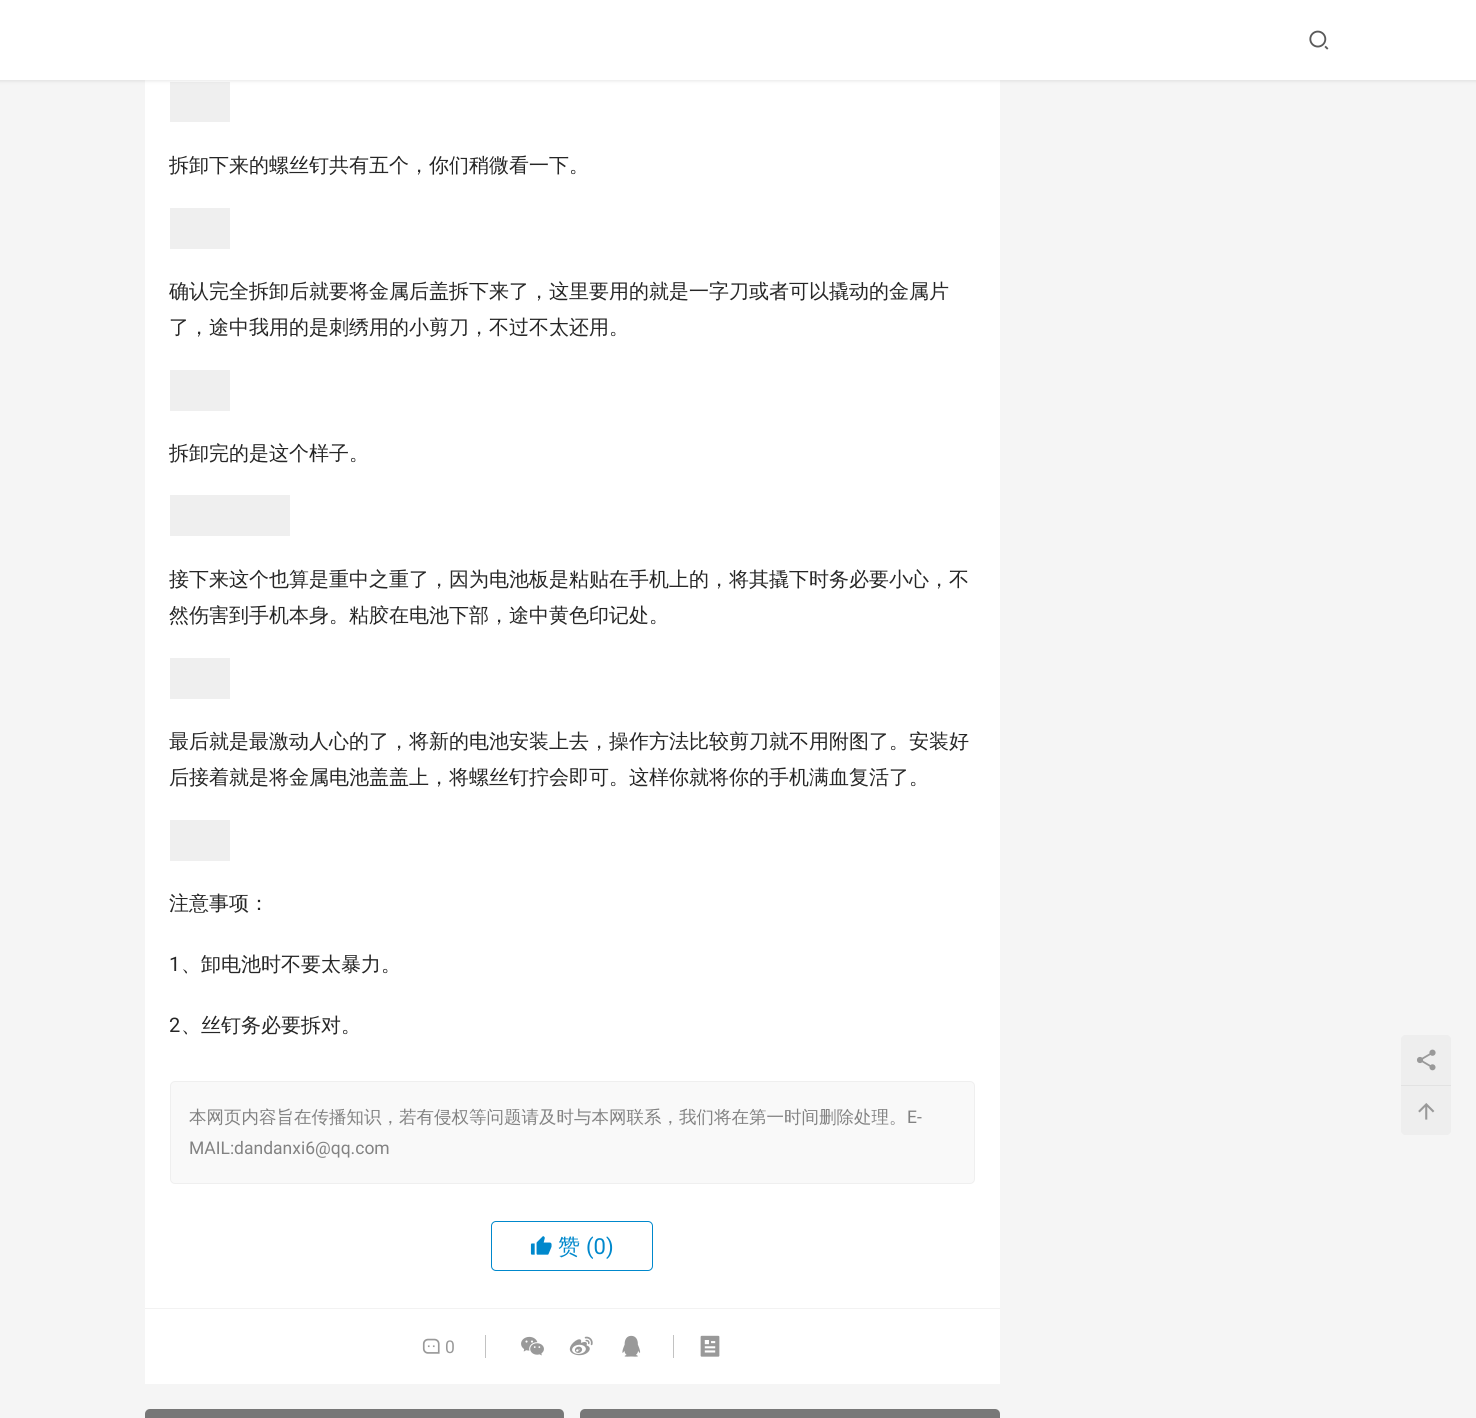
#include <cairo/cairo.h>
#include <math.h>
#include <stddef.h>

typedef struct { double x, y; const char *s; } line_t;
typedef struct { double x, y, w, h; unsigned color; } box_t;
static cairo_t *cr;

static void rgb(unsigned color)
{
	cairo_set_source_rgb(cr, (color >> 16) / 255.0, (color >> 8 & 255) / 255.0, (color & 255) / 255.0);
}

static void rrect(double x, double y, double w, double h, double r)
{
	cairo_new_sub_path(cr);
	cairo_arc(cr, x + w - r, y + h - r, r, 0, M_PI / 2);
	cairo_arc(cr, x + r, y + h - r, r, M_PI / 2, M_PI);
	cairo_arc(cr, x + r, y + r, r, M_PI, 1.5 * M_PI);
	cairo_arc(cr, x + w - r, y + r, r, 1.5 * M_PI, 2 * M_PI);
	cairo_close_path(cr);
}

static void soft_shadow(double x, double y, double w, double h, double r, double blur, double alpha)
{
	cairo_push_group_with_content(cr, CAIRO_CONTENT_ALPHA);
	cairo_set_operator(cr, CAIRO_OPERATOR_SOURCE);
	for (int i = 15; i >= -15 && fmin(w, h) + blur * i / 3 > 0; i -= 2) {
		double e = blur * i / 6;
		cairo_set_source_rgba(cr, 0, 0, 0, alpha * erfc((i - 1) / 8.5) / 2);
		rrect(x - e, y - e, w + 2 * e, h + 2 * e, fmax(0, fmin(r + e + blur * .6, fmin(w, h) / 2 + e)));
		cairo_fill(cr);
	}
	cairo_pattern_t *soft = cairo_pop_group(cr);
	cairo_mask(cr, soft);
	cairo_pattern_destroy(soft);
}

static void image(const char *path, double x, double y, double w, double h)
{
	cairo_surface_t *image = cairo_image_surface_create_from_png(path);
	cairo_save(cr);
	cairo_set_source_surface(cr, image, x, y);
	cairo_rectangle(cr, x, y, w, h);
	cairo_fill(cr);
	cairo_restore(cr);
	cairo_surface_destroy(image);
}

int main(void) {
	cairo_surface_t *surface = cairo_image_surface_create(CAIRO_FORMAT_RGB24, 1476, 1418);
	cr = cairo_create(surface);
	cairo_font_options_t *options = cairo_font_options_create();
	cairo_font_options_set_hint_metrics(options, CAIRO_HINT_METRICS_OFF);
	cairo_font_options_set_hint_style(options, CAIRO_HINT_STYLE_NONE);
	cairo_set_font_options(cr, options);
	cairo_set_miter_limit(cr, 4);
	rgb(0xf5f5f5);
	cairo_paint(cr);
	rgb(0xffffff);
	cairo_rectangle(cr, 145, 80, 855, 1304);
	cairo_fill(cr);
	rgb(0xefefef);
	cairo_rectangle(cr, 170, 82, 60, 40);
	cairo_fill(cr);
	rgb(0x000000);
	soft_shadow(-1, -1, 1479, 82, 0, 2, 0.1);
	rgb(0xffffff);
	cairo_rectangle(cr, 0, 0, 1476, 80);
	cairo_fill(cr);
	image("img/1.png", 1309, 30, 20, 20);
	{
		static const box_t items[] = {
			{170, 208, 60, 41, 0xefefef},
			{170, 370, 60, 41, 0xefefef},
			{170, 495, 120, 41, 0xefefef},
			{170, 658, 60, 41, 0xefefef},
			{170, 820, 60, 41, 0xefefef},
		};
		for (size_t i = 0; i < sizeof items / sizeof *items; i++) {
			rgb(items[i].color);
			cairo_rectangle(cr, items[i].x, items[i].y, items[i].w, items[i].h);
			cairo_fill(cr);
		}
	}
	rgb(0xf9f9f9);
	rrect(170.5, 1081.5, 804, 102, 4.5);
	cairo_fill_preserve(cr);
	rgb(0xefefef);
	cairo_set_line_width(cr, 1);
	cairo_stroke(cr);
	rrect(491.5, 1221.5, 161, 49, 4.5);
	rgb(0x0088cc);
	cairo_stroke(cr);
	image("img/2.png", 530, 1236, 22, 19);
	rgb(0xf2f2f2);
	cairo_rectangle(cr, 145, 1308, 855, 1);
	cairo_fill(cr);
	image("img/3.png", 422, 1338, 18, 16);
	rgb(0xc2c2c2);
	cairo_rectangle(cr, 485, 1335, 1, 23);
	cairo_fill(cr);
	image("img/4.png", 521, 1336, 23, 20);
	image("img/5.png", 569, 1336, 24, 20);
	image("img/6.png", 622, 1335, 19, 22);
	cairo_rectangle(cr, 673, 1335, 1, 23);
	cairo_fill(cr);
	image("img/7.png", 700, 1335, 20, 22);
	image("img/8.png", 145, 1409, 418, 9);
	cairo_set_source_rgba(cr, 0, 0, 0, 0.5);
	rrect(145, 1409, 419, 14, 5);
	cairo_fill(cr);
	image("img/9.png", 580, 1409, 420, 5);
	rgb(0x787878);
	rrect(580, 1409, 420, 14, 5);
	cairo_fill(cr);
	rgb(0xeeeeee);
	cairo_new_path(cr);
	cairo_move_to(cr, 1405, 1035);
	cairo_line_to(cr, 1447, 1035);
	cairo_curve_to(cr, 1449, 1035, 1451, 1037, 1451, 1039);
	cairo_line_to(cr, 1451, 1085);
	cairo_line_to(cr, 1401, 1085);
	cairo_line_to(cr, 1401, 1039);
	cairo_curve_to(cr, 1401, 1037, 1403, 1035, 1405, 1035);
	cairo_close_path(cr);
	cairo_fill(cr);
	image("img/10.png", 1417, 1049, 19, 22);
	cairo_new_path(cr);
	cairo_move_to(cr, 1401, 1085);
	cairo_line_to(cr, 1451, 1085);
	cairo_line_to(cr, 1451, 1131);
	cairo_curve_to(cr, 1451, 1133, 1449, 1135, 1447, 1135);
	cairo_line_to(cr, 1405, 1135);
	cairo_curve_to(cr, 1403, 1135, 1401, 1133, 1401, 1131);
	cairo_close_path(cr);
	cairo_fill(cr);
	rgb(0xe2e2e2);
	cairo_rectangle(cr, 1401, 1085, 50, 1);
	cairo_fill(cr);
	image("img/11.png", 1418, 1103, 17, 17);
	cairo_select_font_face(cr, "WenQuanYi Zen Hei Medium", CAIRO_FONT_SLANT_NORMAL, CAIRO_FONT_WEIGHT_NORMAL);
	cairo_set_font_size(cr, 20);
	rgb(0x262626);
	{
		static const line_t items[] = {
			{169, 172, "拆卸下来的螺丝钉共有五个，你们稍微看一下。"},
			{169, 298, "确认完全拆卸后就要将金属后盖拆下来了，这里要用的就是一字刀或者可以撬动的金属片"},
			{169, 334, "了，途中我用的是刺绣用的小剪刀，不过不太还用。"},
			{169, 460, "拆卸完的是这个样子。"},
			{169, 586, "接下来这个也算是重中之重了，因为电池板是粘贴在手机上的，将其撬下时务必要小心，不"},
			{169, 622, "然伤害到手机本身。粘胶在电池下部，途中黄色印记处。"},
			{169, 748, "最后就是最激动人心的了，将新的电池安装上去，操作方法比较剪刀就不用附图了。安装好"},
			{169, 784, "后接着就是将金属电池盖盖上，将螺丝钉拧会即可。这样你就将你的手机满血复活了。"},
			{169, 910, "注意事项："},
		};
		for (size_t i = 0; i < sizeof items / sizeof *items; i++) {
			cairo_move_to(cr, items[i].x, items[i].y);
			cairo_show_text(cr, items[i].s);
		}
	}
	cairo_select_font_face(cr, "Roboto", CAIRO_FONT_SLANT_NORMAL, CAIRO_FONT_WEIGHT_NORMAL);
	cairo_move_to(cr, 169, 971);
	cairo_show_text(cr, "1");
	cairo_select_font_face(cr, "WenQuanYi Zen Hei Medium", CAIRO_FONT_SLANT_NORMAL, CAIRO_FONT_WEIGHT_NORMAL);
	cairo_move_to(cr, 181, 971);
	cairo_show_text(cr, "、卸电池时不要太暴力。");
	cairo_select_font_face(cr, "Roboto", CAIRO_FONT_SLANT_NORMAL, CAIRO_FONT_WEIGHT_NORMAL);
	cairo_move_to(cr, 169, 1032);
	cairo_show_text(cr, "2");
	cairo_select_font_face(cr, "WenQuanYi Zen Hei Medium", CAIRO_FONT_SLANT_NORMAL, CAIRO_FONT_WEIGHT_NORMAL);
	cairo_move_to(cr, 181, 1032);
	cairo_show_text(cr, "、丝钉务必要拆对。");
	cairo_set_font_size(cr, 17.5);
	rgb(0x828282);
	cairo_move_to(cr, 189, 1123);
	cairo_show_text(cr, "本网页内容旨在传播知识，若有侵权等问题请及时与本网联系，我们将在第一时间删除处理。");
	cairo_select_font_face(cr, "Roboto", CAIRO_FONT_SLANT_NORMAL, CAIRO_FONT_WEIGHT_NORMAL);
	cairo_move_to(cr, 907, 1123);
	cairo_show_text(cr, "E-");
	cairo_move_to(cr, 189, 1154);
	cairo_show_text(cr, "MAIL:dandanxi6@qq.com");
	cairo_select_font_face(cr, "WenQuanYi Zen Hei Medium", CAIRO_FONT_SLANT_NORMAL, CAIRO_FONT_WEIGHT_NORMAL);
	cairo_set_font_size(cr, 22);
	rgb(0x0088cc);
	cairo_move_to(cr, 558, 1254);
	cairo_show_text(cr, "赞");
	cairo_select_font_face(cr, "Roboto", CAIRO_FONT_SLANT_NORMAL, CAIRO_FONT_WEIGHT_NORMAL);
	cairo_move_to(cr, 586, 1254);
	cairo_show_text(cr, "(0)");
	cairo_set_font_size(cr, 17.5);
	rgb(0x999999);
	cairo_move_to(cr, 445, 1353);
	cairo_show_text(cr, "0");
	cairo_surface_write_to_png(surface, "page.png");
	cairo_font_options_destroy(options);
	cairo_destroy(cr);
	cairo_surface_destroy(surface);
	return 0;
}
